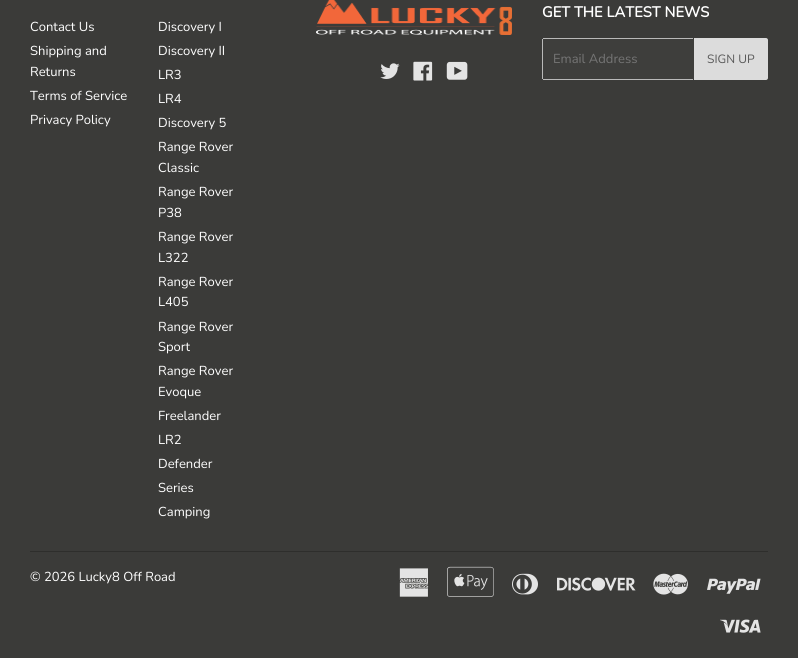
#include <cairo/cairo.h>
#include <math.h>
#include <stddef.h>

typedef struct { double x, y; const char *s; } line_t;
typedef struct { double x, y, w, h; unsigned color; } box_t;
static cairo_t *cr;

static void rgb(unsigned color)
{
	cairo_set_source_rgb(cr, (color >> 16) / 255.0, (color >> 8 & 255) / 255.0, (color & 255) / 255.0);
}

static void rrect(double x, double y, double w, double h, double r)
{
	cairo_new_sub_path(cr);
	cairo_arc(cr, x + w - r, y + h - r, r, 0, M_PI / 2);
	cairo_arc(cr, x + r, y + h - r, r, M_PI / 2, M_PI);
	cairo_arc(cr, x + r, y + r, r, M_PI, 1.5 * M_PI);
	cairo_arc(cr, x + w - r, y + r, r, 1.5 * M_PI, 2 * M_PI);
	cairo_close_path(cr);
}

static void image(const char *path, double x, double y, double w, double h)
{
	cairo_surface_t *image = cairo_image_surface_create_from_png(path);
	cairo_save(cr);
	cairo_set_source_surface(cr, image, x, y);
	cairo_rectangle(cr, x, y, w, h);
	cairo_fill(cr);
	cairo_restore(cr);
	cairo_surface_destroy(image);
}

int main(void) {
	cairo_surface_t *surface = cairo_image_surface_create(CAIRO_FORMAT_RGB24, 798, 658);
	cr = cairo_create(surface);
	cairo_font_options_t *options = cairo_font_options_create();
	cairo_font_options_set_hint_metrics(options, CAIRO_HINT_METRICS_OFF);
	cairo_font_options_set_hint_style(options, CAIRO_HINT_STYLE_NONE);
	cairo_set_font_options(cr, options);
	cairo_set_miter_limit(cr, 4);
	rgb(0x3b3b39);
	cairo_paint(cr);
	image("img/1.png", 316, 0, 196, 35);
	image("img/2.png", 380, 63, 20, 16);
	image("img/3.png", 413, 61, 20, 20);
	image("img/4.png", 446, 61, 22, 19);
	rgb(0x3e3e3c);
	rrect(542, 38, 152, 42, 2);
	cairo_fill(cr);
	{
		static const box_t items[] = {
			{543, 38, 150, 1, 0xb9b9b9},
			{543, 79, 150, 1, 0xb9b9b9},
			{542, 39, 1, 40, 0xb9b9b9},
		};
		for (size_t i = 0; i < sizeof items / sizeof *items; i++) {
			rgb(items[i].color);
			cairo_rectangle(cr, items[i].x, items[i].y, items[i].w, items[i].h);
			cairo_fill(cr);
		}
	}
	rgb(0xdcdcdc);
	cairo_new_path(cr);
	cairo_move_to(cr, 694, 38);
	cairo_line_to(cr, 766, 38);
	cairo_curve_to(cr, 767, 38, 768, 39, 768, 40);
	cairo_line_to(cr, 768, 78);
	cairo_curve_to(cr, 768, 79, 767, 80, 766, 80);
	cairo_line_to(cr, 694, 80);
	cairo_close_path(cr);
	cairo_fill(cr);
	rgb(0x2e2e2c);
	cairo_rectangle(cr, 30, 551, 738, 1);
	cairo_fill(cr);
	image("img/5.png", 399, 568, 30, 29);
	image("img/6.png", 447, 566, 47, 31);
	image("img/7.png", 512, 573, 26, 22);
	image("img/8.png", 557, 577, 79, 14);
	image("img/9.png", 653, 573, 35, 22);
	image("img/10.png", 707, 578, 54, 16);
	image("img/11.png", 720, 619, 41, 14);
	cairo_select_font_face(cr, "Nunito ExtraLight", CAIRO_FONT_SLANT_NORMAL, CAIRO_FONT_WEIGHT_NORMAL);
	cairo_set_font_size(cr, 13);
	rgb(0xffffff);
	{
		static const line_t items[] = {
			{30, 31, "Contact Us"},
			{30, 55, "Shipping and"},
			{30, 76, "Returns"},
			{30, 100, "Terms of Service"},
			{30, 124, "Privacy Policy"},
			{158, 31, "Discovery I"},
			{158, 55, "Discovery II"},
			{158, 79, "LR3"},
			{158, 103, "LR4"},
			{158, 127, "Discovery 5"},
			{158, 151, "Range Rover"},
			{158, 172, "Classic"},
			{158, 196, "Range Rover"},
			{158, 217, "P38"},
			{158, 241, "Range Rover"},
			{158, 262, "L322"},
			{158, 286, "Range Rover"},
			{158, 306, "L405"},
			{158, 331, "Range Rover"},
			{158, 351, "Sport"},
			{158, 375, "Range Rover"},
			{158, 396, "Evoque"},
			{158, 420, "Freelander"},
			{158, 444, "LR2"},
			{158, 468, "Defender"},
			{158, 492, "Series"},
			{158, 516, "Camping"},
		};
		for (size_t i = 0; i < sizeof items / sizeof *items; i++) {
			cairo_move_to(cr, items[i].x, items[i].y);
			cairo_show_text(cr, items[i].s);
		}
	}
	cairo_select_font_face(cr, "Nunito", CAIRO_FONT_SLANT_NORMAL, CAIRO_FONT_WEIGHT_BOLD);
	cairo_set_font_size(cr, 14.75);
	cairo_move_to(cr, 542, 17);
	cairo_show_text(cr, "GET THE LATEST NEWS");
	cairo_select_font_face(cr, "Nunito ExtraLight", CAIRO_FONT_SLANT_NORMAL, CAIRO_FONT_WEIGHT_NORMAL);
	cairo_set_font_size(cr, 13);
	rgb(0x757575);
	cairo_move_to(cr, 553, 63);
	cairo_show_text(cr, "Email Address");
	cairo_set_font_size(cr, 12);
	rgb(0x585858);
	cairo_move_to(cr, 707, 63);
	cairo_show_text(cr, "SIGN UP");
	cairo_set_font_size(cr, 13);
	rgb(0xffffff);
	cairo_move_to(cr, 30, 581);
	cairo_show_text(cr, "© 2026 Lucky8 Off Road");
	cairo_surface_write_to_png(surface, "page.png");
	cairo_font_options_destroy(options);
	cairo_destroy(cr);
	cairo_surface_destroy(surface);
	return 0;
}
